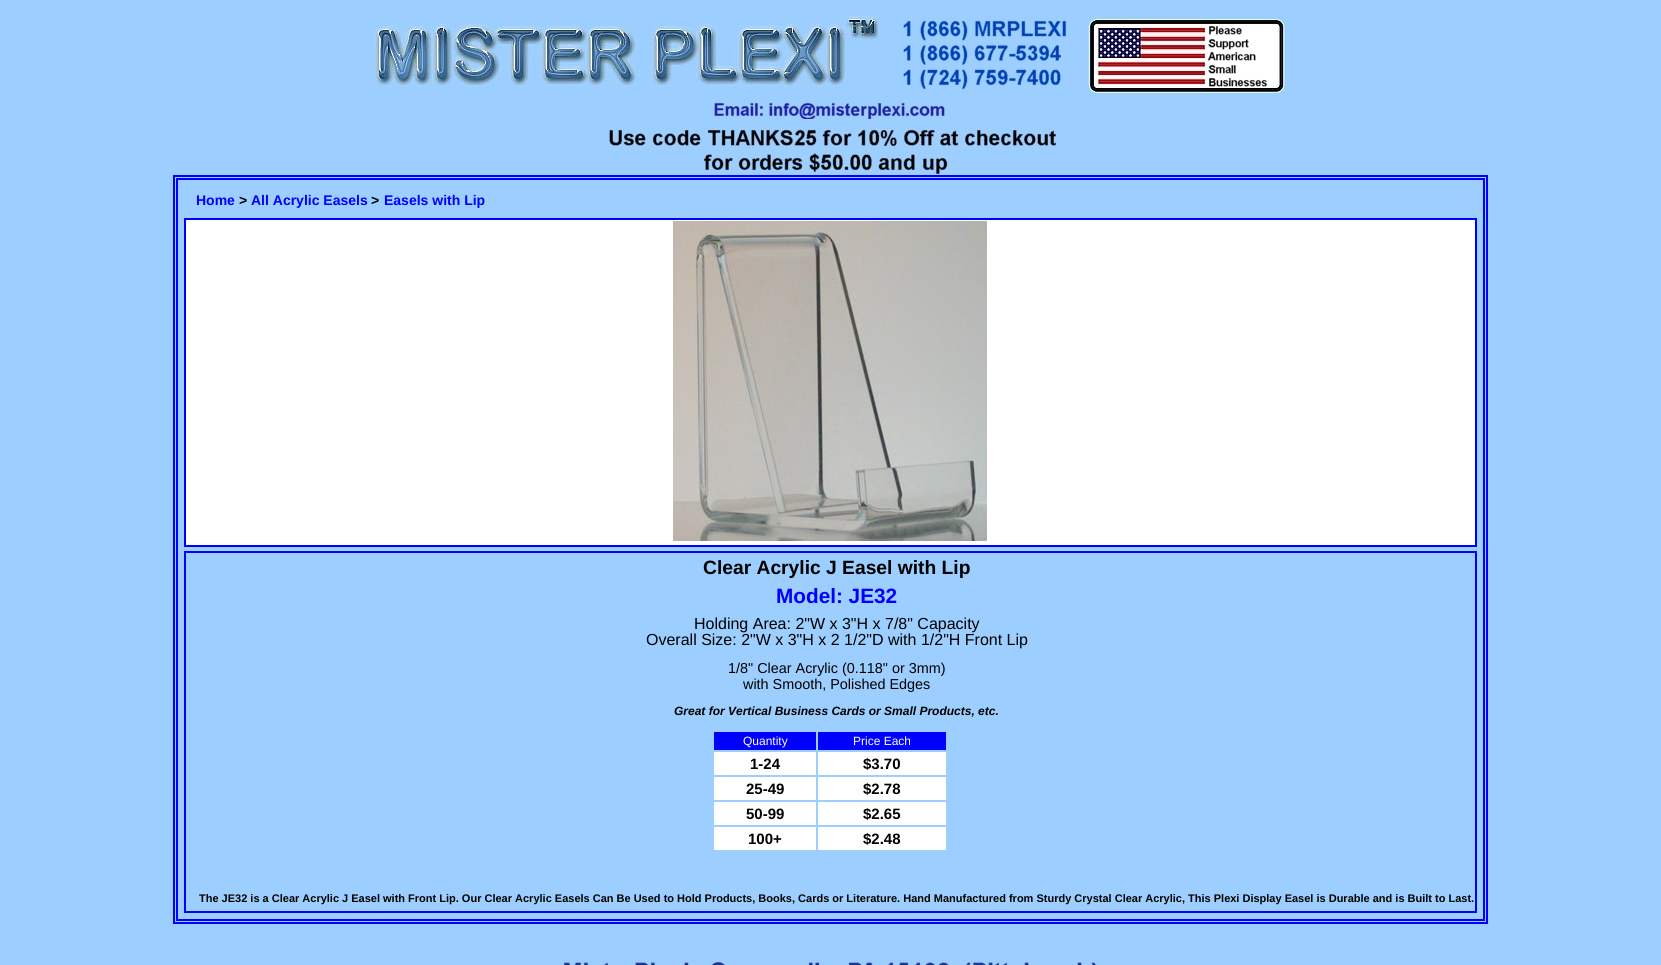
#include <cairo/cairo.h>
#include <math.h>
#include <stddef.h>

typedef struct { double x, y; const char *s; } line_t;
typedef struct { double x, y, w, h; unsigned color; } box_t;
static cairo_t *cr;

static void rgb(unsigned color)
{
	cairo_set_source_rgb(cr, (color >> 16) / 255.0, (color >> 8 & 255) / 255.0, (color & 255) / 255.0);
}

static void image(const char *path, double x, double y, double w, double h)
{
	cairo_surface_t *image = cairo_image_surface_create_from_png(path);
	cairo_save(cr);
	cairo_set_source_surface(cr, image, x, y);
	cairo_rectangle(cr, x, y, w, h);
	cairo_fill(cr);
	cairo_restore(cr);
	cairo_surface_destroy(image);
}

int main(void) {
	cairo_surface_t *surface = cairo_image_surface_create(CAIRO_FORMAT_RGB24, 1661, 965);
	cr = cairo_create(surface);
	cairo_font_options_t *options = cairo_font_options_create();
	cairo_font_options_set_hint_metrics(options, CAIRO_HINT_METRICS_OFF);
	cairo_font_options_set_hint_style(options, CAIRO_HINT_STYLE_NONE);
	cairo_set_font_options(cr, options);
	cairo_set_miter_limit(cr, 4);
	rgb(0x9cceff);
	cairo_paint(cr);
	image("img/1.png", 374, 11, 504, 80);
	image("img/2.png", 903, 20, 164, 70);
	image("img/3.png", 1087, 16, 200, 80);
	image("img/4.png", 713, 102, 232, 17);
	image("img/5.png", 608, 128, 449, 47);
	cairo_rectangle(cr, 174, 176, 1313, 747);
	rgb(0x0000ff);
	cairo_stroke(cr);
	cairo_rectangle(cr, 177, 179, 1307, 741);
	cairo_stroke(cr);
	rgb(0xffffff);
	cairo_rectangle(cr, 185, 219, 1291, 327);
	cairo_fill_preserve(cr);
	rgb(0x0000ff);
	cairo_stroke(cr);
	image("img/6.png", 673, 221, 314, 320);
	cairo_rectangle(cr, 185, 552, 1291, 360);
	cairo_stroke(cr);
	{
		static const box_t items[] = {
			{714, 732, 102, 18, 0x0000ff},
			{818, 732, 128, 18, 0x0000ff},
			{714, 752, 102, 23, 0xffffff},
			{818, 752, 128, 23, 0xffffff},
			{714, 777, 102, 23, 0xffffff},
			{818, 777, 128, 23, 0xffffff},
			{714, 802, 102, 23, 0xffffff},
			{818, 802, 128, 23, 0xffffff},
			{714, 827, 102, 23, 0xffffff},
			{818, 827, 128, 23, 0xffffff},
		};
		for (size_t i = 0; i < sizeof items / sizeof *items; i++) {
			rgb(items[i].color);
			cairo_rectangle(cr, items[i].x, items[i].y, items[i].w, items[i].h);
			cairo_fill(cr);
		}
	}
	image("img/7.png", 563, 961, 533, 4);
	cairo_select_font_face(cr, "Liberation Sans", CAIRO_FONT_SLANT_NORMAL, CAIRO_FONT_WEIGHT_BOLD);
	cairo_set_font_size(cr, 14);
	rgb(0x0000ff);
	cairo_move_to(cr, 196, 205);
	cairo_show_text(cr, "Home");
	rgb(0x000000);
	cairo_move_to(cr, 239, 205);
	cairo_show_text(cr, ">");
	rgb(0x0000ff);
	cairo_move_to(cr, 251, 205);
	cairo_show_text(cr, "All Acrylic Easels");
	rgb(0x000000);
	cairo_move_to(cr, 371, 205);
	cairo_show_text(cr, ">");
	rgb(0x0000ff);
	cairo_move_to(cr, 384, 205);
	cairo_show_text(cr, "Easels with Lip");
	cairo_set_font_size(cr, 19.25);
	rgb(0x000000);
	cairo_move_to(cr, 703, 574);
	cairo_show_text(cr, "Clear Acrylic J Easel with Lip");
	cairo_set_font_size(cr, 20.75);
	rgb(0x0000ff);
	cairo_move_to(cr, 776, 603);
	cairo_show_text(cr, "Model: JE32");
	cairo_select_font_face(cr, "Liberation Sans", CAIRO_FONT_SLANT_NORMAL, CAIRO_FONT_WEIGHT_NORMAL);
	cairo_set_font_size(cr, 16);
	rgb(0x000000);
	cairo_move_to(cr, 694, 629);
	cairo_show_text(cr, "Holding Area: 2\"W x 3\"H x 7/8\" Capacity");
	cairo_move_to(cr, 646, 645);
	cairo_show_text(cr, "Overall Size: 2\"W x 3\"H x 2 1/2\"D with 1/2\"H Front Lip");
	cairo_set_font_size(cr, 14.4);
	cairo_move_to(cr, 728, 673);
	cairo_show_text(cr, "1/8\" Clear Acrylic (0.118\" or 3mm)");
	cairo_move_to(cr, 743, 689);
	cairo_show_text(cr, "with Smooth, Polished Edges");
	cairo_select_font_face(cr, "Liberation Sans", CAIRO_FONT_SLANT_ITALIC, CAIRO_FONT_WEIGHT_BOLD);
	cairo_set_font_size(cr, 12);
	cairo_move_to(cr, 674, 715);
	cairo_show_text(cr, "Great for Vertical Business Cards or Small Products, etc.");
	cairo_select_font_face(cr, "Liberation Sans", CAIRO_FONT_SLANT_NORMAL, CAIRO_FONT_WEIGHT_NORMAL);
	rgb(0xffffff);
	cairo_move_to(cr, 743, 745);
	cairo_show_text(cr, "Quantity");
	cairo_move_to(cr, 853, 745);
	cairo_show_text(cr, "Price Each");
	cairo_select_font_face(cr, "Liberation Sans", CAIRO_FONT_SLANT_NORMAL, CAIRO_FONT_WEIGHT_BOLD);
	cairo_set_font_size(cr, 15);
	rgb(0x000000);
	{
		static const line_t items[] = {
			{750, 769, "1-24"},
			{863, 769, "$3.70"},
			{746, 794, "25-49"},
			{863, 794, "$2.78"},
			{746, 819, "50-99"},
			{863, 819, "$2.65"},
			{748, 844, "100+"},
			{863, 844, "$2.48"},
		};
		for (size_t i = 0; i < sizeof items / sizeof *items; i++) {
			cairo_move_to(cr, items[i].x, items[i].y);
			cairo_show_text(cr, items[i].s);
		}
	}
	cairo_set_font_size(cr, 11);
	cairo_move_to(cr, 199, 902);
	cairo_show_text(cr, "The JE32 is a Clear Acrylic J Easel with Front Lip. Our Clear Acrylic Easels Can Be Used to Hold Products, Books, Cards or Literature. Hand Manufactured from Sturdy Crystal Clear Acrylic, This Plexi Display Easel is Durable and is Built to Last.");
	cairo_surface_write_to_png(surface, "page.png");
	cairo_font_options_destroy(options);
	cairo_destroy(cr);
	cairo_surface_destroy(surface);
	return 0;
}
